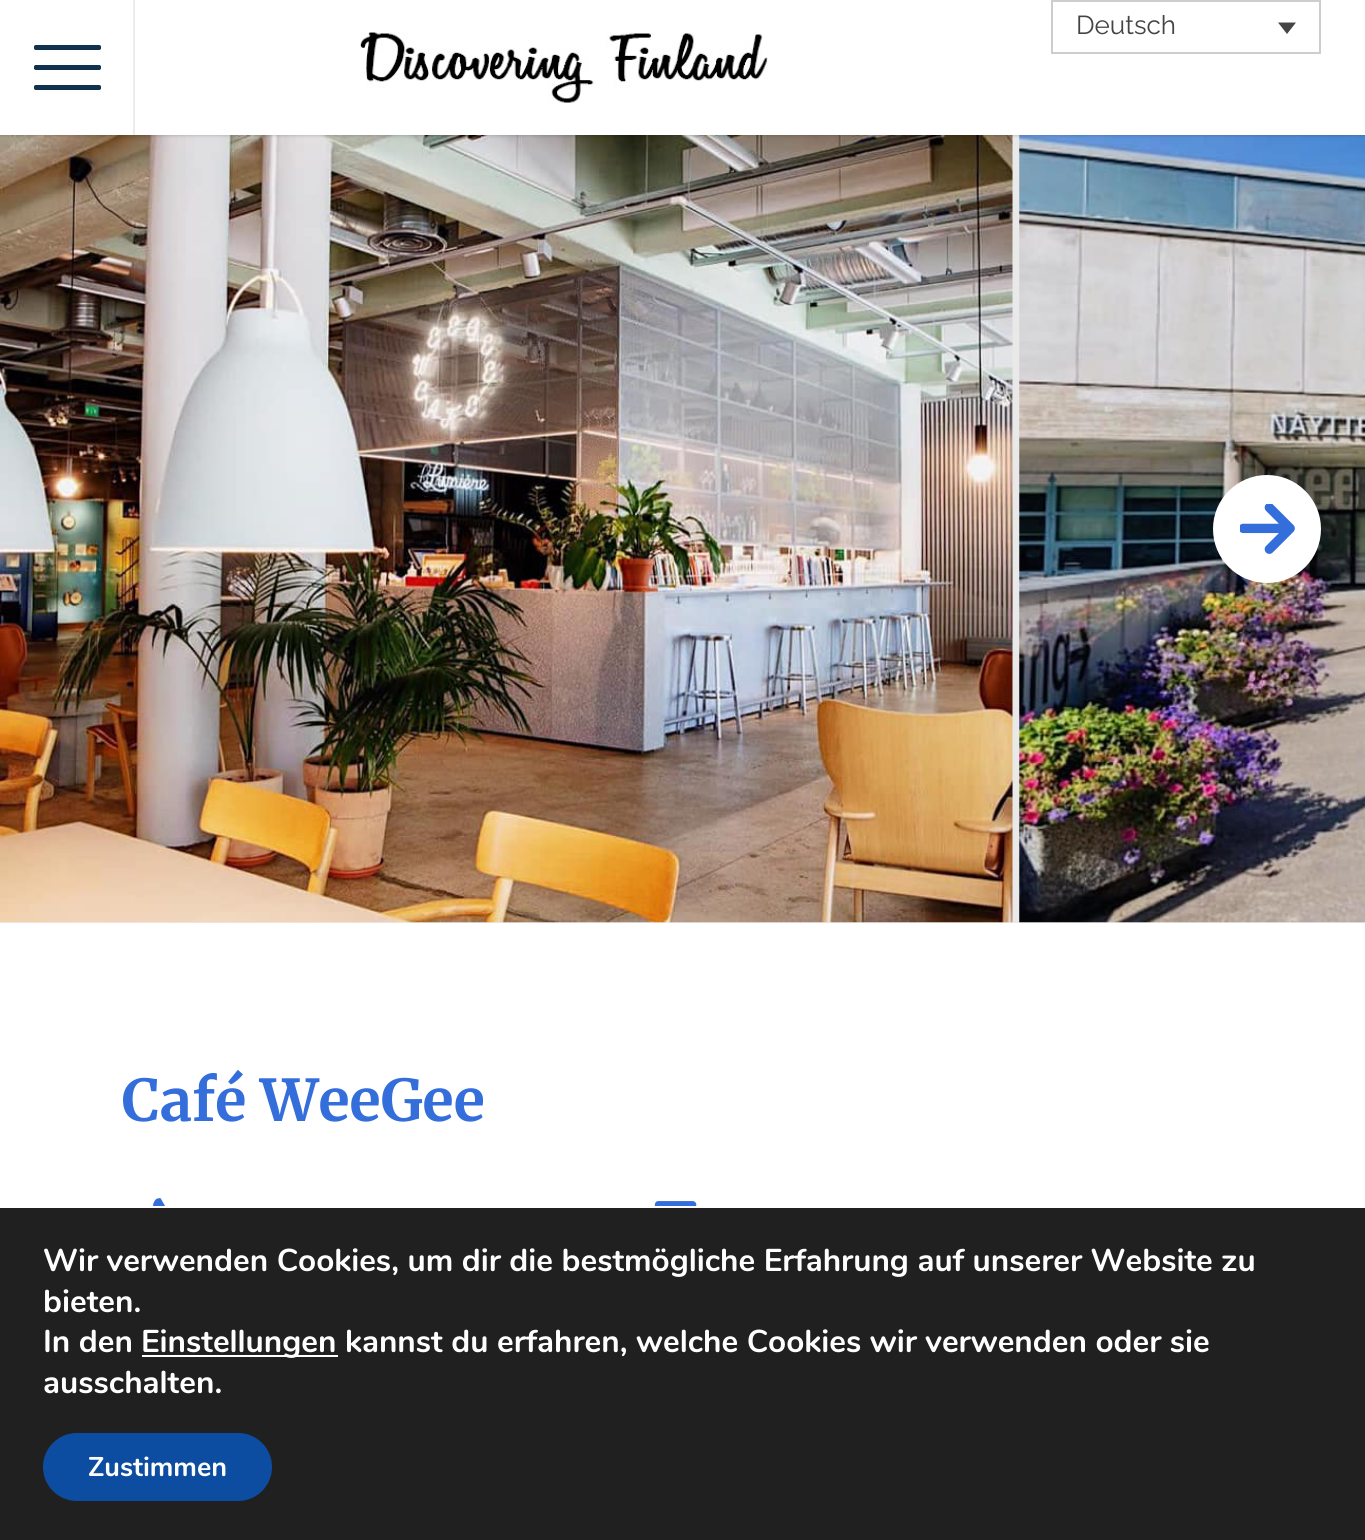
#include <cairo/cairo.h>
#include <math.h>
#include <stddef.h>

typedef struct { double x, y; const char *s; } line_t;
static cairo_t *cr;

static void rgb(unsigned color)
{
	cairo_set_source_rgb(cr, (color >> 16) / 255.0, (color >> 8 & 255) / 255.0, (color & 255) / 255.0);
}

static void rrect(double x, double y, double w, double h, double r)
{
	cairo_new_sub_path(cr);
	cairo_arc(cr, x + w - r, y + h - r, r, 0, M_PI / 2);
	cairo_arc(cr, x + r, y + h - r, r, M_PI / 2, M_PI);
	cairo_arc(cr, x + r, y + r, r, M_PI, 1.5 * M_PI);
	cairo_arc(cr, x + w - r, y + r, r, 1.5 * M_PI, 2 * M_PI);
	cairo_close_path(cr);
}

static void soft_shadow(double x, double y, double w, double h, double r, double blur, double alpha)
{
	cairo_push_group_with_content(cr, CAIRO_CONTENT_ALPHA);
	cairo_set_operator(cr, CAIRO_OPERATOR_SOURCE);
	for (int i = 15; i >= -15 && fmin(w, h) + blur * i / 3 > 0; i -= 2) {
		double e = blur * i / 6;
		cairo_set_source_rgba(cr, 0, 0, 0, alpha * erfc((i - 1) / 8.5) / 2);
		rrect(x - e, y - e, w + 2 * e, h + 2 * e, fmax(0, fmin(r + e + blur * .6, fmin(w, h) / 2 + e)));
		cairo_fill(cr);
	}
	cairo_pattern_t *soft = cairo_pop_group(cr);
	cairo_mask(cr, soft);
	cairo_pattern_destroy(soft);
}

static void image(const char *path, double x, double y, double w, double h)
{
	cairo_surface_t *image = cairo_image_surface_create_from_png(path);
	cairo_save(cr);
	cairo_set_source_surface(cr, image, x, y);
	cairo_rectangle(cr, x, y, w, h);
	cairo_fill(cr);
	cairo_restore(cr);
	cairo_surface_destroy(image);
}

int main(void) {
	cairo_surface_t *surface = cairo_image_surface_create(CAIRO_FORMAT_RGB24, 1365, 1540);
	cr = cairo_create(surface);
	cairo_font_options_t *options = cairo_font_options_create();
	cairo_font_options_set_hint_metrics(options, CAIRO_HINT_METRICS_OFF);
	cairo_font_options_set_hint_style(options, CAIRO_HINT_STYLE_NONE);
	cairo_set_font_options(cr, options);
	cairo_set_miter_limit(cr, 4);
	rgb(0xe9e9e9);
	cairo_paint(cr);
	image("img/3.png", 0, 135, 1013, 788);
	image("img/4.png", 1019, 135, 346, 788);
	rgb(0x000000);
	soft_shadow(0, 0, 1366, 135, 0, 2, 0.25);
	rgb(0xffffff);
	cairo_rectangle(cr, 0, 0, 1365, 135);
	cairo_fill(cr);
	rgb(0xececec);
	cairo_rectangle(cr, 133, 0, 2, 135);
	cairo_fill(cr);
	image("img/1.png", 34, 45, 67, 45);
	cairo_rectangle(cr, 1052, 1, 268, 52);
	rgb(0xcdcdcd);
	cairo_stroke(cr);
	rgb(0x444444);
	cairo_new_path(cr);
	cairo_move_to(cr, 1278, 22.5);
	cairo_line_to(cr, 1296, 22.5);
	cairo_line_to(cr, 1287, 34);
	cairo_close_path(cr);
	cairo_fill(cr);
	image("img/2.png", 360, 32, 408, 71);
	rgb(0xffffff);
	cairo_arc(cr, 1267, 529, 54, 0, 2 * M_PI);
	cairo_fill(cr);
	image("img/5.png", 1240, 504, 55, 50);
	cairo_rectangle(cr, 0, 923, 1365, 285);
	cairo_fill(cr);
	image("img/6.png", 153, 1198, 12, 8);
	image("img/7.png", 654, 1201, 43, 5);
	rgb(0x202020);
	cairo_rectangle(cr, 0, 1208, 1365, 332);
	cairo_fill(cr);
	rgb(0xffffff);
	cairo_rectangle(cr, 142, 1355, 196, 2);
	cairo_fill(cr);
	rgb(0x0c4da2);
	rrect(43, 1433, 229, 68, 34);
	cairo_fill(cr);
	cairo_select_font_face(cr, "Raleway", CAIRO_FONT_SLANT_NORMAL, CAIRO_FONT_WEIGHT_NORMAL);
	cairo_set_font_size(cr, 26);
	rgb(0x444444);
	cairo_move_to(cr, 1076, 34);
	cairo_show_text(cr, "Deutsch");
	cairo_select_font_face(cr, "Merriweather", CAIRO_FONT_SLANT_NORMAL, CAIRO_FONT_WEIGHT_BOLD);
	cairo_set_font_size(cr, 57.5);
	rgb(0x346edb);
	cairo_move_to(cr, 122, 1121);
	cairo_show_text(cr, "Café WeeGee");
	cairo_select_font_face(cr, "Nunito", CAIRO_FONT_SLANT_NORMAL, CAIRO_FONT_WEIGHT_BOLD);
	cairo_set_font_size(cr, 31.5);
	rgb(0xffffff);
	{
		static const line_t items[] = {
			{43, 1271, "Wir verwenden Cookies, um dir die bestmögliche Erfahrung auf unserer Website zu"},
			{43, 1312, "bieten."},
			{43, 1352, "In den"},
			{141, 1352, "Einstellungen kannst du erfahren, welche Cookies wir verwenden oder sie"},
			{43, 1393, "ausschalten."},
		};
		for (size_t i = 0; i < sizeof items / sizeof *items; i++) {
			cairo_move_to(cr, items[i].x, items[i].y);
			cairo_show_text(cr, items[i].s);
		}
	}
	cairo_set_font_size(cr, 27);
	cairo_move_to(cr, 88, 1476);
	cairo_show_text(cr, "Zustimmen");
	cairo_surface_write_to_png(surface, "page.png");
	cairo_font_options_destroy(options);
	cairo_destroy(cr);
	cairo_surface_destroy(surface);
	return 0;
}
